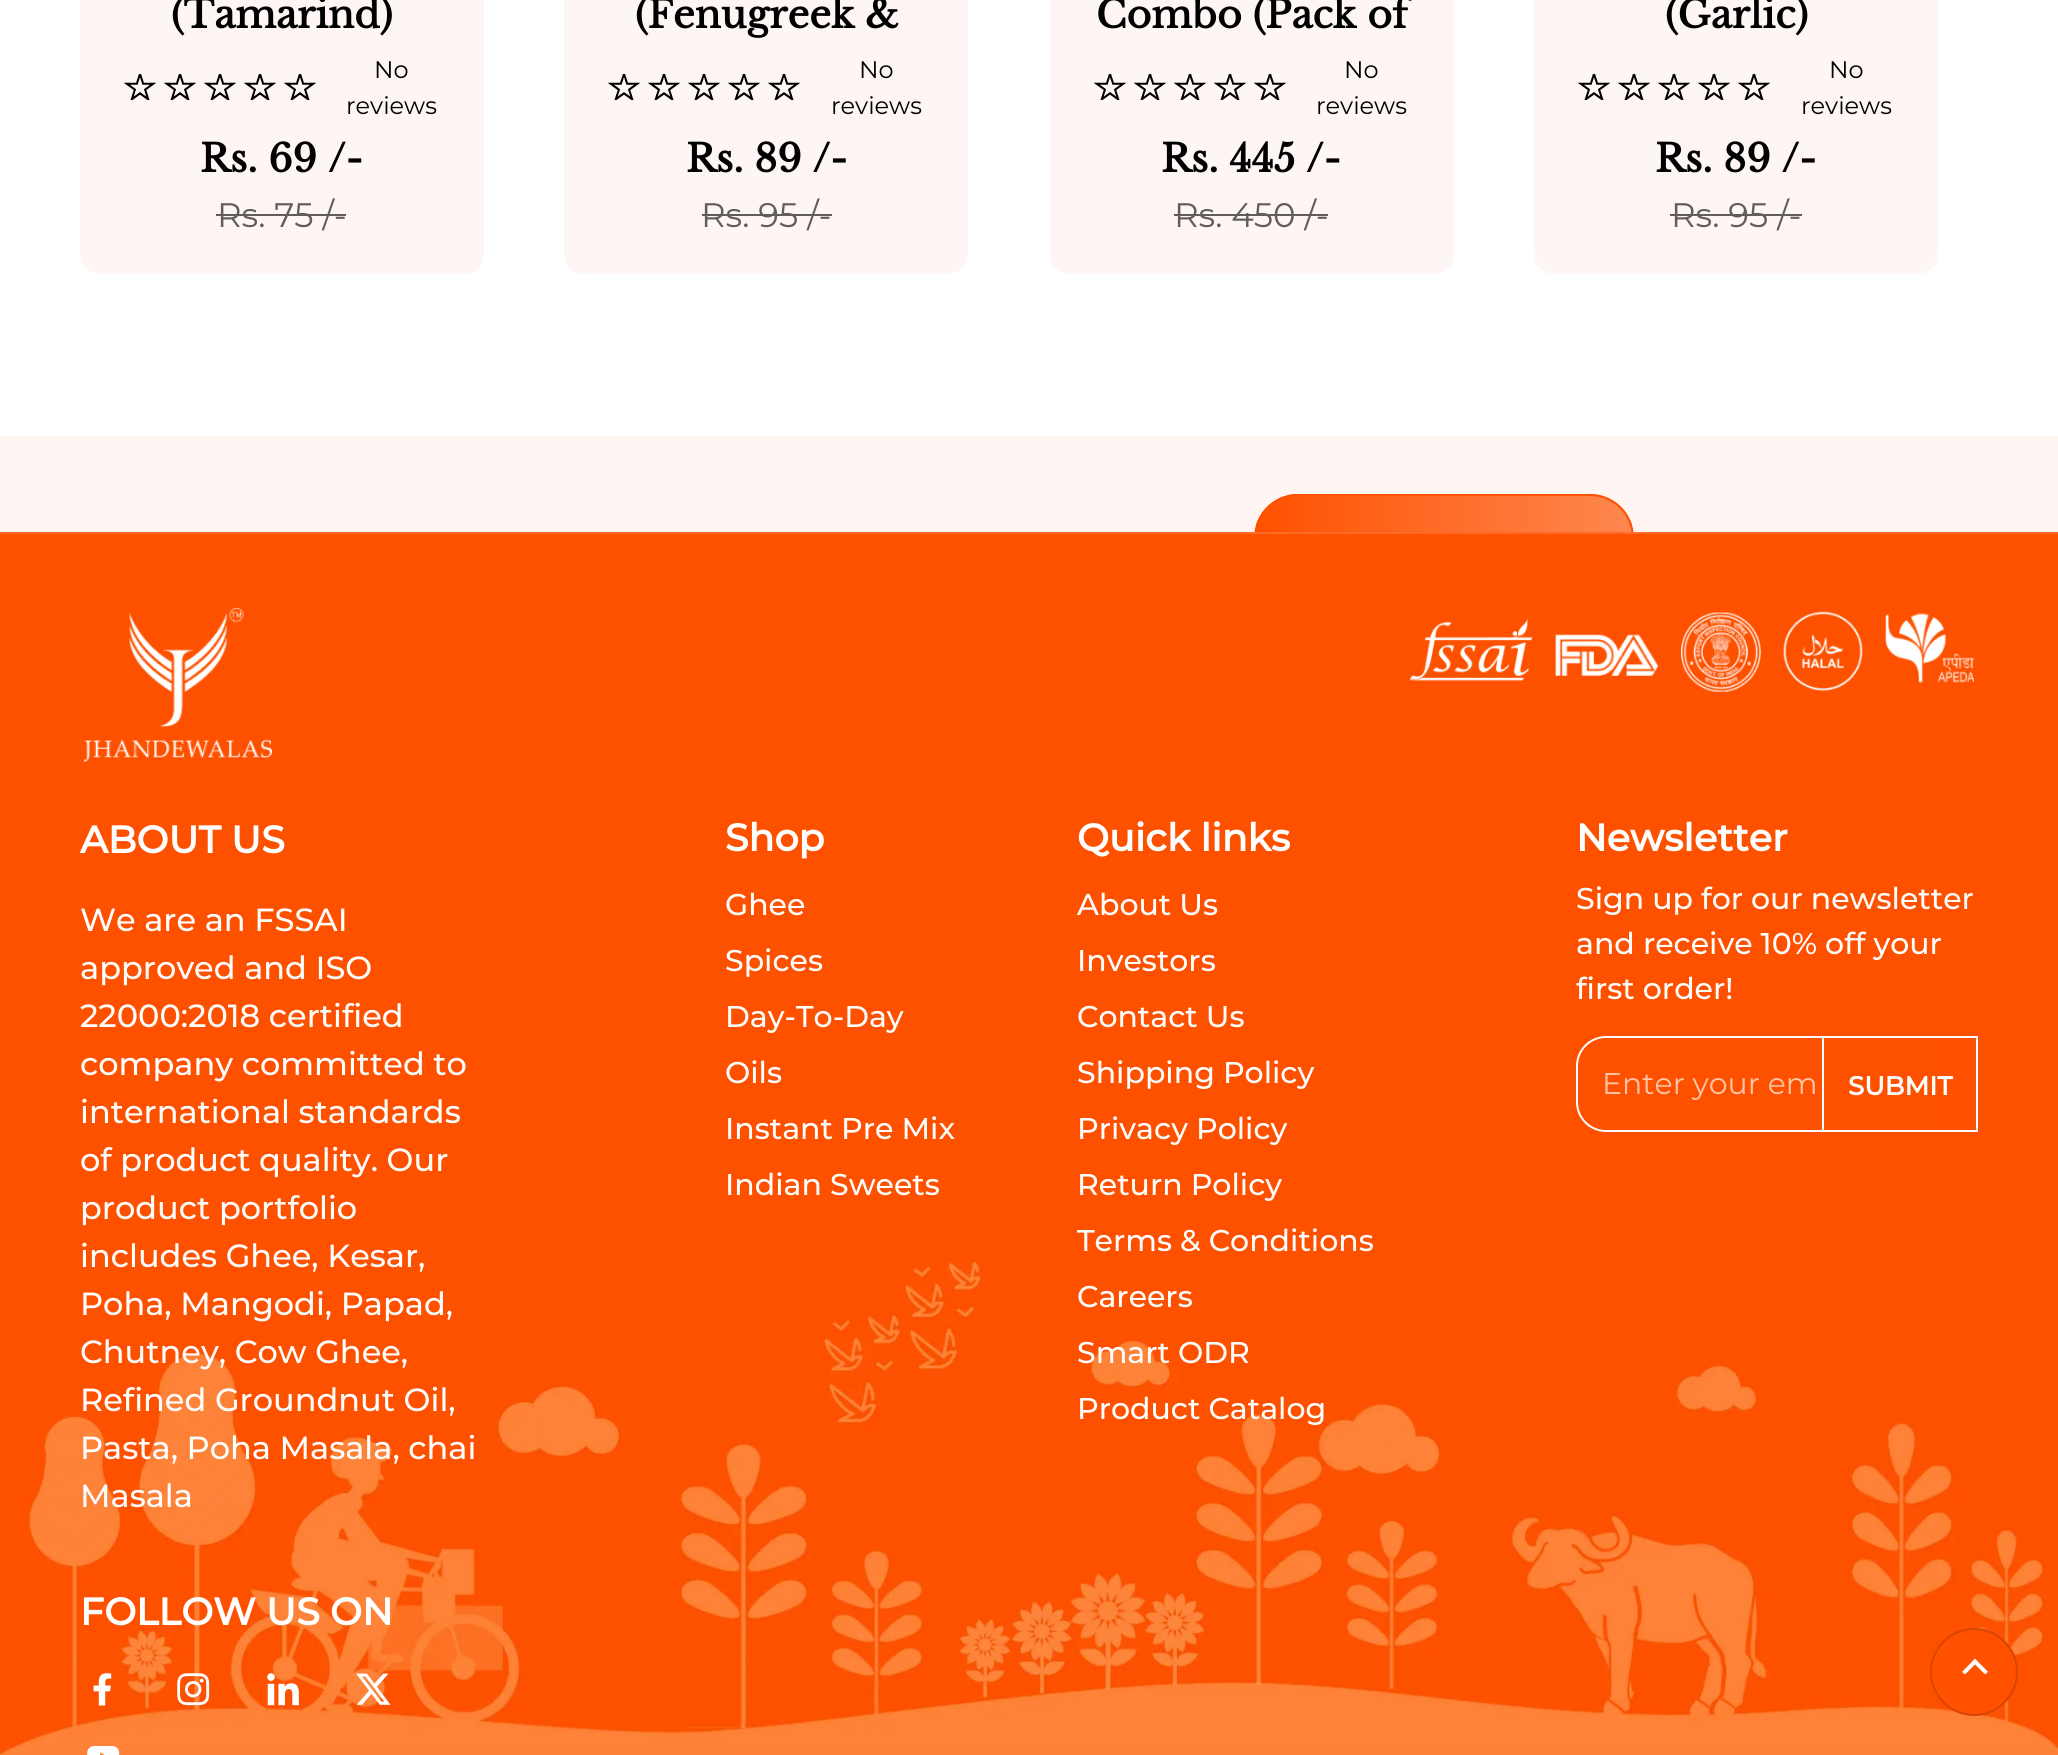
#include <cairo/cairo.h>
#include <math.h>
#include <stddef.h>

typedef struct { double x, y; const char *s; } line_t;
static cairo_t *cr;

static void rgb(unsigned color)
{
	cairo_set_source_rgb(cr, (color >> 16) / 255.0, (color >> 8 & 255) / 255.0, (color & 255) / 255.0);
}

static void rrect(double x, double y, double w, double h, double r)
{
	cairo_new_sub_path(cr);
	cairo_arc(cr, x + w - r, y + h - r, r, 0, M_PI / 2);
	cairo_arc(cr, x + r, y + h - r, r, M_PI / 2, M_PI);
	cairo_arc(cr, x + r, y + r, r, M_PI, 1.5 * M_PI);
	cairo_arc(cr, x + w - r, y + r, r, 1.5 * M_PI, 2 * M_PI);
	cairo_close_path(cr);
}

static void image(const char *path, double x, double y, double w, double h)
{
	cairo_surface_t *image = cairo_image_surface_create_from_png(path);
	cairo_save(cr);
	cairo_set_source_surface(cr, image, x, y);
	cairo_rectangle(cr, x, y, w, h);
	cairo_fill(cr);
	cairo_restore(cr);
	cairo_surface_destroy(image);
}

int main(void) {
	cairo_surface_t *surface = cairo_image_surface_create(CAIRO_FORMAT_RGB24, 2058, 1755);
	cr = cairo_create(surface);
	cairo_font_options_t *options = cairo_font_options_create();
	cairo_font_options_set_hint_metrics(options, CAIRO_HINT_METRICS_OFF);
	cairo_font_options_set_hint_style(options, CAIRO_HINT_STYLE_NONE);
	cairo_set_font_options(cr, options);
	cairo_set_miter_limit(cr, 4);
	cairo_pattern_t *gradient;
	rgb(0xffffff);
	cairo_paint(cr);
	rgb(0xfef6f4);
	rrect(80, -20, 404, 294, 20);
	cairo_fill(cr);
	image("img/1.png", 123, 74, 194, 26);
	rgb(0x615d5d);
	cairo_rectangle(cr, 216, 214, 130, 2);
	cairo_fill(cr);
	rgb(0xfef6f4);
	rrect(564, -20, 404, 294, 20);
	cairo_fill(cr);
	image("img/1.png", 607, 74, 194, 26);
	rgb(0x615d5d);
	cairo_rectangle(cr, 702, 214, 130, 2);
	cairo_fill(cr);
	rgb(0xfef6f4);
	rrect(1050, -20, 404, 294, 20);
	cairo_fill(cr);
	image("img/1.png", 1093, 74, 194, 26);
	rgb(0x615d5d);
	cairo_rectangle(cr, 1174, 214, 154, 2);
	cairo_fill(cr);
	rgb(0xfef6f4);
	rrect(1534, -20, 404, 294, 20);
	cairo_fill(cr);
	image("img/1.png", 1577, 74, 194, 26);
	rgb(0x615d5d);
	cairo_rectangle(cr, 1670, 214, 132, 2);
	cairo_fill(cr);
	rgb(0xfff6f4);
	cairo_rectangle(cr, 0, 436, 2058, 96);
	cairo_fill(cr);
	rgb(0xffffff);
	rrect(1254, 494, 380, 88, 44);
	cairo_fill(cr);
	cairo_save(cr);
	rrect(1254, 494, 380, 88, 44);
	cairo_clip(cr);
	gradient = cairo_pattern_create_linear(1256, 538, 1632, 538);
	cairo_pattern_add_color_stop_rgba(gradient, 0, 1, 0.318, 0, 1);
	cairo_pattern_add_color_stop_rgba(gradient, 1, 0.996, 0.318, 0, 0.69);
	cairo_set_source(cr, gradient);
	cairo_pattern_destroy(gradient);
	cairo_rectangle(cr, 1256, 494, 376, 38);
	cairo_fill(cr);
	cairo_restore(cr);
	rrect(1255, 495, 378, 86, 43);
	rgb(0xff5100);
	cairo_stroke(cr);
	rgb(0xfe5100);
	cairo_rectangle(cr, 0, 534, 2058, 728);
	cairo_fill(cr);
	image("img/2.png", 0, 1262, 2058, 493);
	rgb(0xfe6b26);
	cairo_rectangle(cr, 0, 532, 2058, 2);
	cairo_fill(cr);
	image("img/3.png", 84, 608, 188, 154);
	image("img/4.png", 1410, 611, 564, 81);
	image("img/5.png", 93, 1673, 19, 33);
	image("img/6.png", 177, 1673, 33, 33);
	image("img/7.png", 267, 1673, 32, 33);
	image("img/8.png", 356, 1673, 35, 32);
	image("img/9.png", 87, 1746, 33, 9);
	rrect(1577, 1037, 400, 94, 29);
	rgb(0xffffff);
	cairo_stroke(cr);
	rgb(0xff5100);
	cairo_rectangle(cr, 1948, 1038, 28, 92);
	cairo_fill(cr);
	cairo_rectangle(cr, 1823, 1037, 154, 94);
	rgb(0xffffff);
	cairo_stroke(cr);
	rgb(0xff5100);
	cairo_arc(cr, 1974, 1672, 44, 0, 2 * M_PI);
	cairo_fill(cr);
	cairo_arc(cr, 1974, 1672, 43, 0, 2 * M_PI);
	cairo_set_source_rgba(cr, 0, 0, 0, 0.15);
	cairo_stroke(cr);
	image("img/10.png", 1962, 1658, 26, 16);
	cairo_select_font_face(cr, "Libre Baskerville", CAIRO_FONT_SLANT_NORMAL, CAIRO_FONT_WEIGHT_BOLD);
	cairo_set_font_size(cr, 38);
	rgb(0x000000);
	cairo_move_to(cr, 171, 28);
	cairo_show_text(cr, "(Tamarind)");
	cairo_select_font_face(cr, "Montserrat", CAIRO_FONT_SLANT_NORMAL, CAIRO_FONT_WEIGHT_NORMAL);
	cairo_set_font_size(cr, 24);
	cairo_move_to(cr, 374, 78);
	cairo_show_text(cr, "No");
	cairo_move_to(cr, 346, 114);
	cairo_show_text(cr, "reviews");
	cairo_select_font_face(cr, "Libre Baskerville", CAIRO_FONT_SLANT_NORMAL, CAIRO_FONT_WEIGHT_BOLD);
	cairo_set_font_size(cr, 38);
	cairo_move_to(cr, 200, 172);
	cairo_show_text(cr, "Rs. 69 /-");
	cairo_select_font_face(cr, "Montserrat", CAIRO_FONT_SLANT_NORMAL, CAIRO_FONT_WEIGHT_NORMAL);
	cairo_set_font_size(cr, 34);
	rgb(0x615d5d);
	cairo_move_to(cr, 217, 227);
	cairo_show_text(cr, "Rs. 75 /-");
	cairo_select_font_face(cr, "Libre Baskerville", CAIRO_FONT_SLANT_NORMAL, CAIRO_FONT_WEIGHT_BOLD);
	cairo_set_font_size(cr, 38);
	rgb(0x000000);
	cairo_move_to(cr, 635, 28);
	cairo_show_text(cr, "(Fenugreek &");
	cairo_select_font_face(cr, "Montserrat", CAIRO_FONT_SLANT_NORMAL, CAIRO_FONT_WEIGHT_NORMAL);
	cairo_set_font_size(cr, 24);
	cairo_move_to(cr, 859, 78);
	cairo_show_text(cr, "No");
	cairo_move_to(cr, 831, 114);
	cairo_show_text(cr, "reviews");
	cairo_select_font_face(cr, "Libre Baskerville", CAIRO_FONT_SLANT_NORMAL, CAIRO_FONT_WEIGHT_BOLD);
	cairo_set_font_size(cr, 38);
	cairo_move_to(cr, 686, 172);
	cairo_show_text(cr, "Rs. 89 /-");
	cairo_select_font_face(cr, "Montserrat", CAIRO_FONT_SLANT_NORMAL, CAIRO_FONT_WEIGHT_NORMAL);
	cairo_set_font_size(cr, 34);
	rgb(0x615d5d);
	cairo_move_to(cr, 701, 227);
	cairo_show_text(cr, "Rs. 95 /-");
	cairo_select_font_face(cr, "Libre Baskerville", CAIRO_FONT_SLANT_NORMAL, CAIRO_FONT_WEIGHT_BOLD);
	cairo_set_font_size(cr, 38);
	rgb(0x000000);
	cairo_move_to(cr, 1096, 28);
	cairo_show_text(cr, "Combo (Pack of");
	cairo_select_font_face(cr, "Montserrat", CAIRO_FONT_SLANT_NORMAL, CAIRO_FONT_WEIGHT_NORMAL);
	cairo_set_font_size(cr, 24);
	cairo_move_to(cr, 1344, 78);
	cairo_show_text(cr, "No");
	cairo_move_to(cr, 1316, 114);
	cairo_show_text(cr, "reviews");
	cairo_select_font_face(cr, "Libre Baskerville", CAIRO_FONT_SLANT_NORMAL, CAIRO_FONT_WEIGHT_BOLD);
	cairo_set_font_size(cr, 38);
	cairo_move_to(cr, 1161, 172);
	cairo_show_text(cr, "Rs. 445 /-");
	cairo_select_font_face(cr, "Montserrat", CAIRO_FONT_SLANT_NORMAL, CAIRO_FONT_WEIGHT_NORMAL);
	cairo_set_font_size(cr, 34);
	rgb(0x615d5d);
	cairo_move_to(cr, 1174, 227);
	cairo_show_text(cr, "Rs. 450 /-");
	cairo_select_font_face(cr, "Libre Baskerville", CAIRO_FONT_SLANT_NORMAL, CAIRO_FONT_WEIGHT_BOLD);
	cairo_set_font_size(cr, 38);
	rgb(0x000000);
	cairo_move_to(cr, 1665, 28);
	cairo_show_text(cr, "(Garlic)");
	cairo_select_font_face(cr, "Montserrat", CAIRO_FONT_SLANT_NORMAL, CAIRO_FONT_WEIGHT_NORMAL);
	cairo_set_font_size(cr, 24);
	cairo_move_to(cr, 1829, 78);
	cairo_show_text(cr, "No");
	cairo_move_to(cr, 1801, 114);
	cairo_show_text(cr, "reviews");
	cairo_select_font_face(cr, "Libre Baskerville", CAIRO_FONT_SLANT_NORMAL, CAIRO_FONT_WEIGHT_BOLD);
	cairo_set_font_size(cr, 38);
	cairo_move_to(cr, 1655, 172);
	cairo_show_text(cr, "Rs. 89 /-");
	cairo_select_font_face(cr, "Montserrat", CAIRO_FONT_SLANT_NORMAL, CAIRO_FONT_WEIGHT_NORMAL);
	cairo_set_font_size(cr, 34);
	rgb(0x615d5d);
	cairo_move_to(cr, 1671, 227);
	cairo_show_text(cr, "Rs. 95 /-");
	cairo_select_font_face(cr, "Montserrat", CAIRO_FONT_SLANT_NORMAL, CAIRO_FONT_WEIGHT_BOLD);
	cairo_set_font_size(cr, 38);
	rgb(0xffffff);
	cairo_move_to(cr, 80, 853);
	cairo_show_text(cr, "ABOUT US");
	cairo_select_font_face(cr, "Montserrat Medium", CAIRO_FONT_SLANT_NORMAL, CAIRO_FONT_WEIGHT_NORMAL);
	cairo_set_font_size(cr, 32);
	{
		static const line_t items[] = {
			{80, 931, "We are an FSSAI"},
			{80, 979, "approved and ISO"},
			{80, 1027, "22000:2018 certified"},
			{80, 1075, "company committed to"},
			{80, 1123, "international standards"},
			{80, 1171, "of product quality. Our"},
			{80, 1219, "product portfolio"},
			{80, 1267, "includes Ghee, Kesar,"},
			{80, 1315, "Poha, Mangodi, Papad,"},
			{80, 1363, "Chutney, Cow Ghee,"},
			{80, 1411, "Refined Groundnut Oil,"},
			{80, 1459, "Pasta, Poha Masala, chai"},
			{80, 1507, "Masala"},
		};
		for (size_t i = 0; i < sizeof items / sizeof *items; i++) {
			cairo_move_to(cr, items[i].x, items[i].y);
			cairo_show_text(cr, items[i].s);
		}
	}
	cairo_select_font_face(cr, "Montserrat", CAIRO_FONT_SLANT_NORMAL, CAIRO_FONT_WEIGHT_BOLD);
	cairo_set_font_size(cr, 38);
	cairo_move_to(cr, 80, 1625);
	cairo_show_text(cr, "FOLLOW US ON");
	cairo_move_to(cr, 725, 851);
	cairo_show_text(cr, "Shop");
	cairo_select_font_face(cr, "Montserrat Medium", CAIRO_FONT_SLANT_NORMAL, CAIRO_FONT_WEIGHT_NORMAL);
	cairo_set_font_size(cr, 30);
	{
		static const line_t items[] = {
			{725, 915, "Ghee"},
			{725, 971, "Spices"},
			{725, 1027, "Day-To-Day"},
			{725, 1083, "Oils"},
			{725, 1139, "Instant Pre Mix"},
			{725, 1195, "Indian Sweets"},
		};
		for (size_t i = 0; i < sizeof items / sizeof *items; i++) {
			cairo_move_to(cr, items[i].x, items[i].y);
			cairo_show_text(cr, items[i].s);
		}
	}
	cairo_select_font_face(cr, "Montserrat", CAIRO_FONT_SLANT_NORMAL, CAIRO_FONT_WEIGHT_BOLD);
	cairo_set_font_size(cr, 38);
	cairo_move_to(cr, 1077, 851);
	cairo_show_text(cr, "Quick links");
	cairo_select_font_face(cr, "Montserrat Medium", CAIRO_FONT_SLANT_NORMAL, CAIRO_FONT_WEIGHT_NORMAL);
	cairo_set_font_size(cr, 30);
	{
		static const line_t items[] = {
			{1077, 915, "About Us"},
			{1077, 971, "Investors"},
			{1077, 1027, "Contact Us"},
			{1077, 1083, "Shipping Policy"},
			{1077, 1139, "Privacy Policy"},
			{1077, 1195, "Return Policy"},
			{1077, 1251, "Terms & Conditions"},
			{1077, 1307, "Careers"},
			{1077, 1363, "Smart ODR"},
			{1077, 1419, "Product Catalog"},
		};
		for (size_t i = 0; i < sizeof items / sizeof *items; i++) {
			cairo_move_to(cr, items[i].x, items[i].y);
			cairo_show_text(cr, items[i].s);
		}
	}
	cairo_select_font_face(cr, "Montserrat", CAIRO_FONT_SLANT_NORMAL, CAIRO_FONT_WEIGHT_BOLD);
	cairo_set_font_size(cr, 38);
	cairo_move_to(cr, 1576, 851);
	cairo_show_text(cr, "Newsletter");
	cairo_select_font_face(cr, "Montserrat Medium", CAIRO_FONT_SLANT_NORMAL, CAIRO_FONT_WEIGHT_NORMAL);
	cairo_set_font_size(cr, 30);
	{
		static const line_t items[] = {
			{1576, 909, "Sign up for our newsletter"},
			{1576, 954, "and receive 10% off your"},
			{1576, 999, "first order!"},
		};
		for (size_t i = 0; i < sizeof items / sizeof *items; i++) {
			cairo_move_to(cr, items[i].x, items[i].y);
			cairo_show_text(cr, items[i].s);
		}
	}
	cairo_select_font_face(cr, "Montserrat", CAIRO_FONT_SLANT_NORMAL, CAIRO_FONT_WEIGHT_NORMAL);
	rgb(0xffc4a8);
	cairo_move_to(cr, 1602, 1094);
	cairo_show_text(cr, "Enter your em");
	cairo_select_font_face(cr, "Montserrat", CAIRO_FONT_SLANT_NORMAL, CAIRO_FONT_WEIGHT_BOLD);
	cairo_set_font_size(cr, 26);
	rgb(0xffffff);
	cairo_move_to(cr, 1848, 1095);
	cairo_show_text(cr, "SUBMIT");
	cairo_surface_write_to_png(surface, "page.png");
	cairo_font_options_destroy(options);
	cairo_destroy(cr);
	cairo_surface_destroy(surface);
	return 0;
}
